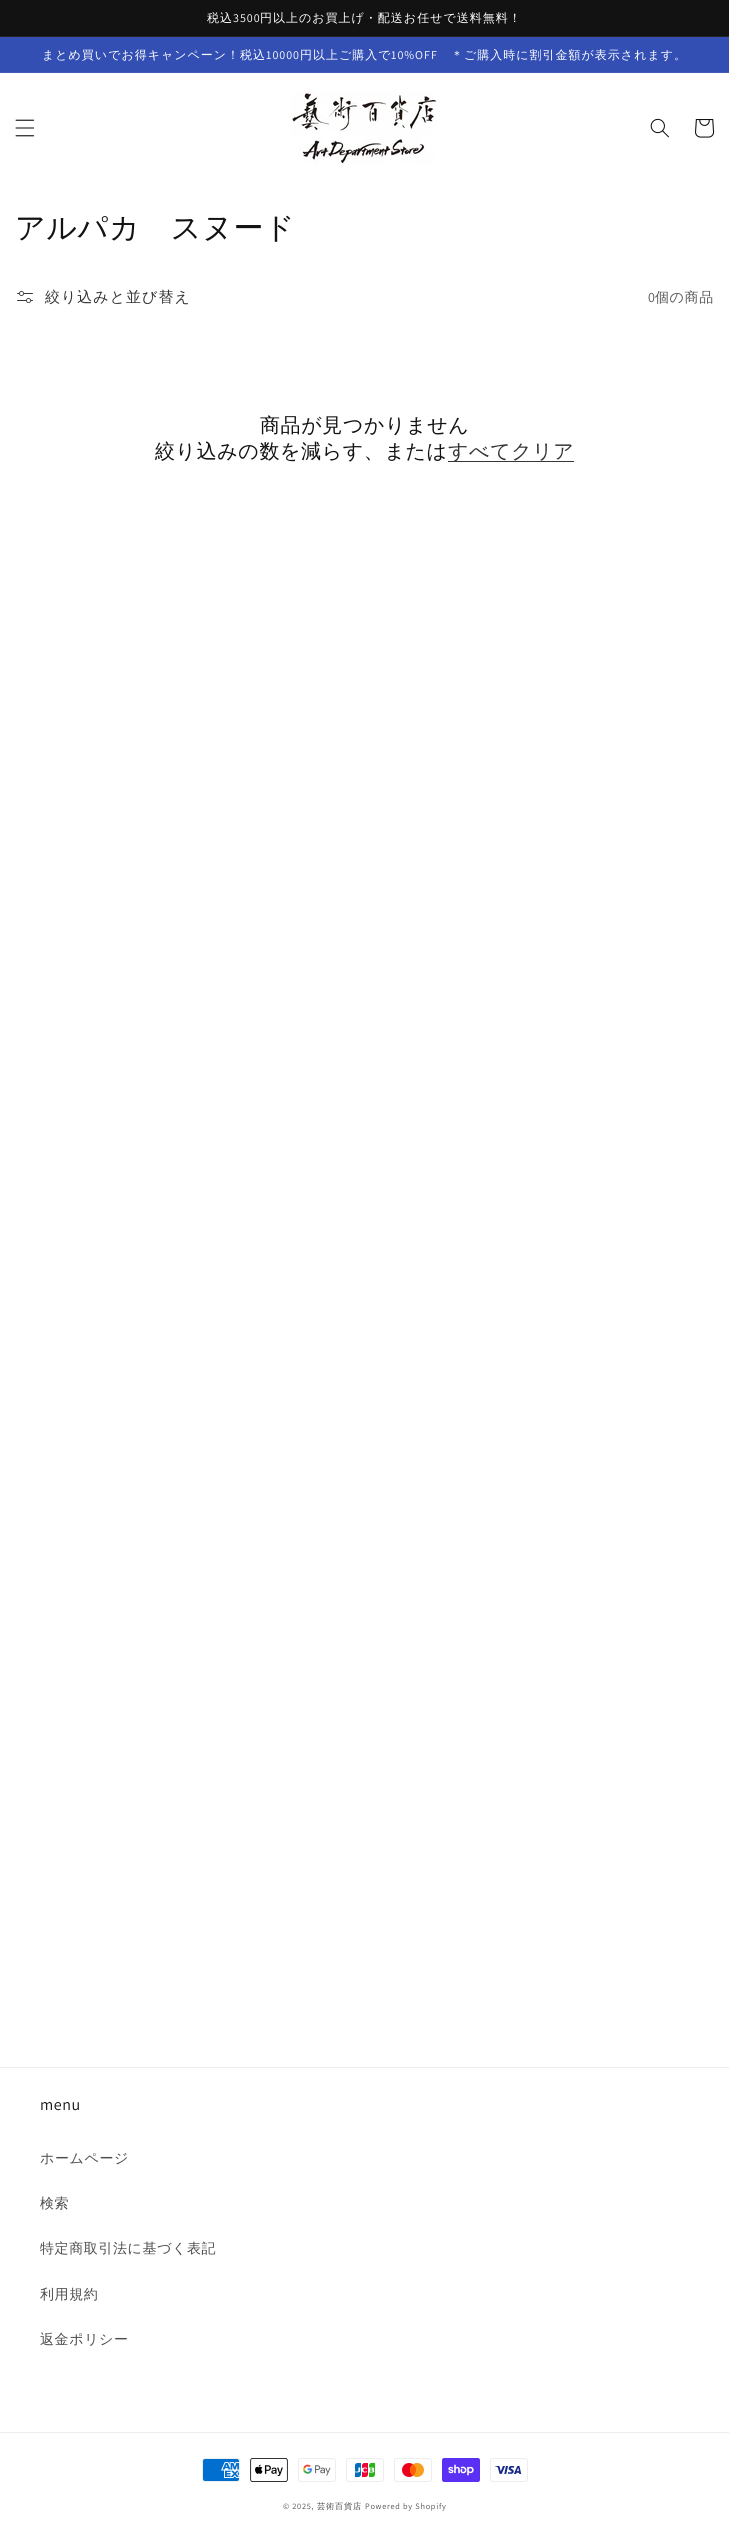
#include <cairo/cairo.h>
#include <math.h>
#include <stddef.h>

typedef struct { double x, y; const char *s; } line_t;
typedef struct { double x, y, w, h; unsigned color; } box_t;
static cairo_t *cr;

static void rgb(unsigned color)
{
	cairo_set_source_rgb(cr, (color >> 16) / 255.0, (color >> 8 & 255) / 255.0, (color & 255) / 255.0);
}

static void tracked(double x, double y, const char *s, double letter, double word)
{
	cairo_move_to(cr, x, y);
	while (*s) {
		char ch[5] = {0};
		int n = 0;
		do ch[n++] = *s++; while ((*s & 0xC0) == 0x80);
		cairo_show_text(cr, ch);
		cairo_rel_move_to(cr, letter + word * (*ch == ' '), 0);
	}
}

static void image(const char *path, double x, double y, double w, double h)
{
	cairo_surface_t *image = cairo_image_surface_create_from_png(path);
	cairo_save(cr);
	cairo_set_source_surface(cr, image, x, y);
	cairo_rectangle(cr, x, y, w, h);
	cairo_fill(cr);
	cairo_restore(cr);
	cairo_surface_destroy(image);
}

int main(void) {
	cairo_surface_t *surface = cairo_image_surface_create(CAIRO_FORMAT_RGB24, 729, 2541);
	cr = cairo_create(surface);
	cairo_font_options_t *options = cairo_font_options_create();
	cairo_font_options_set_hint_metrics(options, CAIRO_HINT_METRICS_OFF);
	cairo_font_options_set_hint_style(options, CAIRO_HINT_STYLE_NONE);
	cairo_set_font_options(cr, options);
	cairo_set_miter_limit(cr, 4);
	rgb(0xffffff);
	cairo_paint(cr);
	{
		static const box_t items[] = {
			{0, 0, 729, 36, 0x121212},
			{0, 36, 729, 1, 0x252525},
			{0, 37, 729, 35, 0x334fb4},
			{0, 72, 729, 1, 0x435dba},
		};
		for (size_t i = 0; i < sizeof items / sizeof *items; i++) {
			rgb(items[i].color);
			cairo_rectangle(cr, items[i].x, items[i].y, items[i].w, items[i].h);
			cairo_fill(cr);
		}
	}
	image("img/1.png", 15, 119, 20, 18);
	image("img/2.png", 290, 91, 147, 74);
	image("img/3.png", 650, 118, 19, 20);
	image("img/4.png", 695, 119, 20, 19);
	image("img/5.png", 17, 291, 16, 12);
	{
		static const box_t items[] = {
			{448, 461, 126, 1, 0x363636},
			{0, 2067, 729, 1, 0xececec},
			{0, 2432, 729, 1, 0xececec},
		};
		for (size_t i = 0; i < sizeof items / sizeof *items; i++) {
			rgb(items[i].color);
			cairo_rectangle(cr, items[i].x, items[i].y, items[i].w, items[i].h);
			cairo_fill(cr);
		}
	}
	image("img/6.png", 202, 2458, 38, 24);
	image("img/7.png", 250, 2458, 38, 24);
	image("img/8.png", 298, 2458, 38, 24);
	image("img/9.png", 346, 2458, 38, 24);
	image("img/10.png", 394, 2458, 38, 24);
	image("img/11.png", 442, 2458, 38, 24);
	image("img/12.png", 490, 2458, 38, 24);
	cairo_select_font_face(cr, "WenQuanYi Zen Hei Medium", CAIRO_FONT_SLANT_NORMAL, CAIRO_FONT_WEIGHT_NORMAL);
	cairo_set_font_size(cr, 12);
	rgb(0xffffff);
	tracked(207, 22, "税込", 1, 0);
	cairo_select_font_face(cr, "Assistant", CAIRO_FONT_SLANT_NORMAL, CAIRO_FONT_WEIGHT_NORMAL);
	tracked(233, 22, "3500", 1, 0);
	cairo_select_font_face(cr, "WenQuanYi Zen Hei Medium", CAIRO_FONT_SLANT_NORMAL, CAIRO_FONT_WEIGHT_NORMAL);
	tracked(260, 22, "円以上のお買上げ・配送お任せで送料無料！", 1, 0);
	tracked(42, 59, "まとめ買いでお得キャンペーン！税込", 1, 0);
	cairo_select_font_face(cr, "Assistant", CAIRO_FONT_SLANT_NORMAL, CAIRO_FONT_WEIGHT_NORMAL);
	tracked(266, 59, "10000", 1, 0);
	cairo_select_font_face(cr, "WenQuanYi Zen Hei Medium", CAIRO_FONT_SLANT_NORMAL, CAIRO_FONT_WEIGHT_NORMAL);
	tracked(300, 59, "円以上ご購入で", 1, 0);
	cairo_select_font_face(cr, "Assistant", CAIRO_FONT_SLANT_NORMAL, CAIRO_FONT_WEIGHT_NORMAL);
	tracked(391, 59, "10%OFF", 1, 0);
	cairo_select_font_face(cr, "WenQuanYi Zen Hei Medium", CAIRO_FONT_SLANT_NORMAL, CAIRO_FONT_WEIGHT_NORMAL);
	tracked(451, 59, "＊ご購入時に割引金額が表示されます。", 1, 0);
	cairo_set_font_size(cr, 30);
	rgb(0x121212);
	tracked(15, 238, "アルパカ　スヌード", 0.6, 0);
	cairo_set_font_size(cr, 15);
	rgb(0x353535);
	tracked(45, 302, "絞り込みと並び替え", 1, 0);
	cairo_select_font_face(cr, "Assistant", CAIRO_FONT_SLANT_NORMAL, CAIRO_FONT_WEIGHT_NORMAL);
	cairo_set_font_size(cr, 14);
	rgb(0x595959);
	tracked(648, 302, "0", 0.6, 0);
	cairo_select_font_face(cr, "WenQuanYi Zen Hei Medium", CAIRO_FONT_SLANT_NORMAL, CAIRO_FONT_WEIGHT_NORMAL);
	tracked(655, 302, "個の商品", 0.6, 0);
	cairo_set_font_size(cr, 20);
	rgb(0x121212);
	tracked(260, 432, "商品が見つかりません", 0.6, 0);
	tracked(155, 458, "絞り込みの数を減らす、または", 0.6, 0);
	rgb(0x353535);
	tracked(448, 458, "すべてクリア", 0.6, 0);
	cairo_select_font_face(cr, "Assistant", CAIRO_FONT_SLANT_NORMAL, CAIRO_FONT_WEIGHT_NORMAL);
	cairo_set_font_size(cr, 16);
	rgb(0x121212);
	tracked(40, 2110, "menu", 0.6, 0);
	cairo_select_font_face(cr, "WenQuanYi Zen Hei Medium", CAIRO_FONT_SLANT_NORMAL, CAIRO_FONT_WEIGHT_NORMAL);
	cairo_set_font_size(cr, 14);
	rgb(0x4d4d4d);
	{
		static const line_t items[] = {
			{40, 2163, "ホームページ"},
			{40, 2208, "検索"},
			{40, 2253, "特定商取引法に基づく表記"},
			{40, 2299, "利用規約"},
			{40, 2344, "返金ポリシー"},
		};
		for (size_t i = 0; i < sizeof items / sizeof *items; i++) {
			tracked(items[i].x, items[i].y, items[i].s, 0.6, 0);
		}
	}
	cairo_select_font_face(cr, "Assistant", CAIRO_FONT_SLANT_NORMAL, CAIRO_FONT_WEIGHT_NORMAL);
	cairo_set_font_size(cr, 8.25);
	tracked(283, 2509, "© 2025,", 0.75, 0);
	cairo_select_font_face(cr, "WenQuanYi Zen Hei Medium", CAIRO_FONT_SLANT_NORMAL, CAIRO_FONT_WEIGHT_NORMAL);
	tracked(317, 2509, "芸術百貨店", 0.75, 0);
	cairo_select_font_face(cr, "Assistant", CAIRO_FONT_SLANT_NORMAL, CAIRO_FONT_WEIGHT_NORMAL);
	tracked(365, 2509, "Powered by Shopify", 0.75, 0);
	cairo_surface_write_to_png(surface, "page.png");
	cairo_font_options_destroy(options);
	cairo_destroy(cr);
	cairo_surface_destroy(surface);
	return 0;
}
